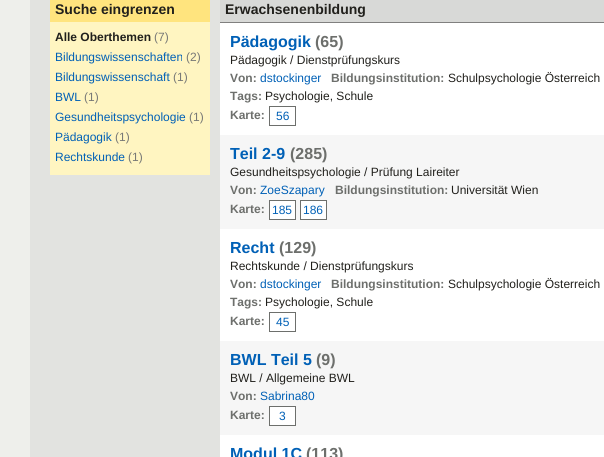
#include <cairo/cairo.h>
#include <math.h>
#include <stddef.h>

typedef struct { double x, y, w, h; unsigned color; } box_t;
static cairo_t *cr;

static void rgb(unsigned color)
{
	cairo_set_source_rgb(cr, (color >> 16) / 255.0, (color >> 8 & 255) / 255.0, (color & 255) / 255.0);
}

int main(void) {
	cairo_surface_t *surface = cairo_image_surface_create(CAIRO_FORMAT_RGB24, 604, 457);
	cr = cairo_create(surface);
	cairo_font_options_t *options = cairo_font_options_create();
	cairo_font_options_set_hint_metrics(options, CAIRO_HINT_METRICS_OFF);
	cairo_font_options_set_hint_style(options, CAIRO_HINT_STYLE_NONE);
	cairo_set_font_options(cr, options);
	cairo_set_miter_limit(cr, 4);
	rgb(0xeeefeb);
	cairo_paint(cr);
	{
		static const box_t items[] = {
			{30, 0, 190, 457, 0xe2e3e0},
			{50, 0, 160, 22, 0xffe47e},
			{50, 22, 160, 153, 0xfff5c1},
			{220, 0, 384, 22, 0xd8d9d7},
			{220, 22, 384, 1, 0x80807f},
			{220, 23, 384, 112, 0xffffff},
		};
		for (size_t i = 0; i < sizeof items / sizeof *items; i++) {
			rgb(items[i].color);
			cairo_rectangle(cr, items[i].x, items[i].y, items[i].w, items[i].h);
			cairo_fill(cr);
		}
	}
	cairo_rectangle(cr, 269.5, 106.5, 26, 19);
	rgb(0x6d6f6c);
	cairo_set_line_width(cr, 1);
	cairo_stroke(cr);
	rgb(0xf6f6f6);
	cairo_rectangle(cr, 220, 135, 384, 94);
	cairo_fill(cr);
	rgb(0xffffff);
	cairo_rectangle(cr, 269.5, 200.5, 26, 19);
	cairo_fill_preserve(cr);
	rgb(0x6d6f6c);
	cairo_stroke(cr);
	rgb(0xffffff);
	cairo_rectangle(cr, 300.5, 200.5, 26, 19);
	cairo_fill_preserve(cr);
	rgb(0x6d6f6c);
	cairo_stroke(cr);
	rgb(0xffffff);
	cairo_rectangle(cr, 220, 229, 384, 112);
	cairo_fill(cr);
	cairo_rectangle(cr, 269.5, 312.5, 26, 19);
	rgb(0x6d6f6c);
	cairo_stroke(cr);
	rgb(0xf6f6f6);
	cairo_rectangle(cr, 220, 341, 384, 94);
	cairo_fill(cr);
	rgb(0xffffff);
	cairo_rectangle(cr, 269.5, 406.5, 26, 19);
	cairo_fill_preserve(cr);
	rgb(0x6d6f6c);
	cairo_stroke(cr);
	rgb(0xffffff);
	cairo_rectangle(cr, 220, 435, 384, 22);
	cairo_fill(cr);
	cairo_select_font_face(cr, "Liberation Sans", CAIRO_FONT_SLANT_NORMAL, CAIRO_FONT_WEIGHT_BOLD);
	cairo_set_font_size(cr, 14);
	rgb(0x21201c);
	cairo_move_to(cr, 55, 14);
	cairo_show_text(cr, "Suche eingrenzen");
	cairo_set_font_size(cr, 12);
	cairo_move_to(cr, 55, 41);
	cairo_show_text(cr, "Alle Oberthemen");
	cairo_select_font_face(cr, "Liberation Sans", CAIRO_FONT_SLANT_NORMAL, CAIRO_FONT_WEIGHT_NORMAL);
	rgb(0x777876);
	cairo_move_to(cr, 154, 41);
	cairo_show_text(cr, "(7)");
	rgb(0x0060b6);
	cairo_move_to(cr, 55, 61);
	cairo_show_text(cr, "Bildungswissenschaften");
	rgb(0x777876);
	cairo_move_to(cr, 186, 61);
	cairo_show_text(cr, "(2)");
	rgb(0x0060b6);
	cairo_move_to(cr, 55, 81);
	cairo_show_text(cr, "Bildungswissenschaft");
	rgb(0x777876);
	cairo_move_to(cr, 173, 81);
	cairo_show_text(cr, "(1)");
	rgb(0x0060b6);
	cairo_move_to(cr, 55, 101);
	cairo_show_text(cr, "BWL");
	rgb(0x777876);
	cairo_move_to(cr, 84, 101);
	cairo_show_text(cr, "(1)");
	rgb(0x0060b6);
	cairo_move_to(cr, 55, 121);
	cairo_show_text(cr, "Gesundheitspsychologie");
	rgb(0x777876);
	cairo_move_to(cr, 189, 121);
	cairo_show_text(cr, "(1)");
	rgb(0x0060b6);
	cairo_move_to(cr, 55, 141);
	cairo_show_text(cr, "Pädagogik");
	rgb(0x777876);
	cairo_move_to(cr, 115, 141);
	cairo_show_text(cr, "(1)");
	rgb(0x0060b6);
	cairo_move_to(cr, 55, 161);
	cairo_show_text(cr, "Rechtskunde");
	rgb(0x777876);
	cairo_move_to(cr, 128, 161);
	cairo_show_text(cr, "(1)");
	cairo_select_font_face(cr, "Liberation Sans", CAIRO_FONT_SLANT_NORMAL, CAIRO_FONT_WEIGHT_BOLD);
	cairo_set_font_size(cr, 14);
	rgb(0x21201c);
	cairo_move_to(cr, 225, 14);
	cairo_show_text(cr, "Erwachsenenbildung");
	cairo_set_font_size(cr, 16);
	rgb(0x0060b6);
	cairo_move_to(cr, 230, 47);
	cairo_show_text(cr, "Pädagogik");
	rgb(0x6d6f6c);
	cairo_move_to(cr, 315, 47);
	cairo_show_text(cr, "(65)");
	cairo_select_font_face(cr, "Liberation Sans", CAIRO_FONT_SLANT_NORMAL, CAIRO_FONT_WEIGHT_NORMAL);
	cairo_set_font_size(cr, 12);
	rgb(0x21201c);
	cairo_move_to(cr, 230, 64);
	cairo_show_text(cr, "Pädagogik / Dienstprüfungskurs");
	cairo_select_font_face(cr, "Liberation Sans", CAIRO_FONT_SLANT_NORMAL, CAIRO_FONT_WEIGHT_BOLD);
	rgb(0x6d6f6c);
	cairo_move_to(cr, 230, 82);
	cairo_show_text(cr, "Von:");
	cairo_select_font_face(cr, "Liberation Sans", CAIRO_FONT_SLANT_NORMAL, CAIRO_FONT_WEIGHT_NORMAL);
	rgb(0x0060b6);
	cairo_move_to(cr, 260, 82);
	cairo_show_text(cr, "dstockinger");
	cairo_select_font_face(cr, "Liberation Sans", CAIRO_FONT_SLANT_NORMAL, CAIRO_FONT_WEIGHT_BOLD);
	rgb(0x6d6f6c);
	cairo_move_to(cr, 331, 82);
	cairo_show_text(cr, "Bildungsinstitution:");
	cairo_select_font_face(cr, "Liberation Sans", CAIRO_FONT_SLANT_NORMAL, CAIRO_FONT_WEIGHT_NORMAL);
	rgb(0x21201c);
	cairo_move_to(cr, 448, 82);
	cairo_show_text(cr, "Schulpsychologie Österreich");
	cairo_select_font_face(cr, "Liberation Sans", CAIRO_FONT_SLANT_NORMAL, CAIRO_FONT_WEIGHT_BOLD);
	rgb(0x6d6f6c);
	cairo_move_to(cr, 230, 100);
	cairo_show_text(cr, "Tags:");
	cairo_select_font_face(cr, "Liberation Sans", CAIRO_FONT_SLANT_NORMAL, CAIRO_FONT_WEIGHT_NORMAL);
	rgb(0x21201c);
	cairo_move_to(cr, 265, 100);
	cairo_show_text(cr, "Psychologie, Schule");
	cairo_select_font_face(cr, "Liberation Sans", CAIRO_FONT_SLANT_NORMAL, CAIRO_FONT_WEIGHT_BOLD);
	rgb(0x6d6f6c);
	cairo_move_to(cr, 230, 119);
	cairo_show_text(cr, "Karte:");
	cairo_select_font_face(cr, "Liberation Sans", CAIRO_FONT_SLANT_NORMAL, CAIRO_FONT_WEIGHT_NORMAL);
	rgb(0x0060b6);
	cairo_move_to(cr, 276, 120);
	cairo_show_text(cr, "56");
	cairo_select_font_face(cr, "Liberation Sans", CAIRO_FONT_SLANT_NORMAL, CAIRO_FONT_WEIGHT_BOLD);
	cairo_set_font_size(cr, 16);
	cairo_move_to(cr, 230, 159);
	cairo_show_text(cr, "Teil 2-9");
	rgb(0x6d6f6c);
	cairo_move_to(cr, 290, 159);
	cairo_show_text(cr, "(285)");
	cairo_select_font_face(cr, "Liberation Sans", CAIRO_FONT_SLANT_NORMAL, CAIRO_FONT_WEIGHT_NORMAL);
	cairo_set_font_size(cr, 12);
	rgb(0x21201c);
	cairo_move_to(cr, 230, 176);
	cairo_show_text(cr, "Gesundheitspsychologie / Prüfung Laireiter");
	cairo_select_font_face(cr, "Liberation Sans", CAIRO_FONT_SLANT_NORMAL, CAIRO_FONT_WEIGHT_BOLD);
	rgb(0x6d6f6c);
	cairo_move_to(cr, 230, 194);
	cairo_show_text(cr, "Von:");
	cairo_select_font_face(cr, "Liberation Sans", CAIRO_FONT_SLANT_NORMAL, CAIRO_FONT_WEIGHT_NORMAL);
	rgb(0x0060b6);
	cairo_move_to(cr, 260, 194);
	cairo_show_text(cr, "ZoeSzapary");
	cairo_select_font_face(cr, "Liberation Sans", CAIRO_FONT_SLANT_NORMAL, CAIRO_FONT_WEIGHT_BOLD);
	rgb(0x6d6f6c);
	cairo_move_to(cr, 335, 194);
	cairo_show_text(cr, "Bildungsinstitution:");
	cairo_select_font_face(cr, "Liberation Sans", CAIRO_FONT_SLANT_NORMAL, CAIRO_FONT_WEIGHT_NORMAL);
	rgb(0x21201c);
	cairo_move_to(cr, 451, 194);
	cairo_show_text(cr, "Universität Wien");
	cairo_select_font_face(cr, "Liberation Sans", CAIRO_FONT_SLANT_NORMAL, CAIRO_FONT_WEIGHT_BOLD);
	rgb(0x6d6f6c);
	cairo_move_to(cr, 230, 213);
	cairo_show_text(cr, "Karte:");
	cairo_select_font_face(cr, "Liberation Sans", CAIRO_FONT_SLANT_NORMAL, CAIRO_FONT_WEIGHT_NORMAL);
	rgb(0x0060b6);
	cairo_move_to(cr, 272, 214);
	cairo_show_text(cr, "185");
	cairo_move_to(cr, 303, 214);
	cairo_show_text(cr, "186");
	cairo_select_font_face(cr, "Liberation Sans", CAIRO_FONT_SLANT_NORMAL, CAIRO_FONT_WEIGHT_BOLD);
	cairo_set_font_size(cr, 16);
	cairo_move_to(cr, 230, 253);
	cairo_show_text(cr, "Recht");
	rgb(0x6d6f6c);
	cairo_move_to(cr, 279, 253);
	cairo_show_text(cr, "(129)");
	cairo_select_font_face(cr, "Liberation Sans", CAIRO_FONT_SLANT_NORMAL, CAIRO_FONT_WEIGHT_NORMAL);
	cairo_set_font_size(cr, 12);
	rgb(0x21201c);
	cairo_move_to(cr, 230, 270);
	cairo_show_text(cr, "Rechtskunde / Dienstprüfungskurs");
	cairo_select_font_face(cr, "Liberation Sans", CAIRO_FONT_SLANT_NORMAL, CAIRO_FONT_WEIGHT_BOLD);
	rgb(0x6d6f6c);
	cairo_move_to(cr, 230, 288);
	cairo_show_text(cr, "Von:");
	cairo_select_font_face(cr, "Liberation Sans", CAIRO_FONT_SLANT_NORMAL, CAIRO_FONT_WEIGHT_NORMAL);
	rgb(0x0060b6);
	cairo_move_to(cr, 260, 288);
	cairo_show_text(cr, "dstockinger");
	cairo_select_font_face(cr, "Liberation Sans", CAIRO_FONT_SLANT_NORMAL, CAIRO_FONT_WEIGHT_BOLD);
	rgb(0x6d6f6c);
	cairo_move_to(cr, 331, 288);
	cairo_show_text(cr, "Bildungsinstitution:");
	cairo_select_font_face(cr, "Liberation Sans", CAIRO_FONT_SLANT_NORMAL, CAIRO_FONT_WEIGHT_NORMAL);
	rgb(0x21201c);
	cairo_move_to(cr, 448, 288);
	cairo_show_text(cr, "Schulpsychologie Österreich");
	cairo_select_font_face(cr, "Liberation Sans", CAIRO_FONT_SLANT_NORMAL, CAIRO_FONT_WEIGHT_BOLD);
	rgb(0x6d6f6c);
	cairo_move_to(cr, 230, 306);
	cairo_show_text(cr, "Tags:");
	cairo_select_font_face(cr, "Liberation Sans", CAIRO_FONT_SLANT_NORMAL, CAIRO_FONT_WEIGHT_NORMAL);
	rgb(0x21201c);
	cairo_move_to(cr, 265, 306);
	cairo_show_text(cr, "Psychologie, Schule");
	cairo_select_font_face(cr, "Liberation Sans", CAIRO_FONT_SLANT_NORMAL, CAIRO_FONT_WEIGHT_BOLD);
	rgb(0x6d6f6c);
	cairo_move_to(cr, 230, 325);
	cairo_show_text(cr, "Karte:");
	cairo_select_font_face(cr, "Liberation Sans", CAIRO_FONT_SLANT_NORMAL, CAIRO_FONT_WEIGHT_NORMAL);
	rgb(0x0060b6);
	cairo_move_to(cr, 276, 326);
	cairo_show_text(cr, "45");
	cairo_select_font_face(cr, "Liberation Sans", CAIRO_FONT_SLANT_NORMAL, CAIRO_FONT_WEIGHT_BOLD);
	cairo_set_font_size(cr, 16);
	cairo_move_to(cr, 230, 365);
	cairo_show_text(cr, "BWL Teil 5");
	rgb(0x6d6f6c);
	cairo_move_to(cr, 316, 365);
	cairo_show_text(cr, "(9)");
	cairo_select_font_face(cr, "Liberation Sans", CAIRO_FONT_SLANT_NORMAL, CAIRO_FONT_WEIGHT_NORMAL);
	cairo_set_font_size(cr, 12);
	rgb(0x21201c);
	cairo_move_to(cr, 230, 382);
	cairo_show_text(cr, "BWL / Allgemeine BWL");
	cairo_select_font_face(cr, "Liberation Sans", CAIRO_FONT_SLANT_NORMAL, CAIRO_FONT_WEIGHT_BOLD);
	rgb(0x6d6f6c);
	cairo_move_to(cr, 230, 400);
	cairo_show_text(cr, "Von:");
	cairo_select_font_face(cr, "Liberation Sans", CAIRO_FONT_SLANT_NORMAL, CAIRO_FONT_WEIGHT_NORMAL);
	rgb(0x0060b6);
	cairo_move_to(cr, 260, 400);
	cairo_show_text(cr, "Sabrina80");
	cairo_select_font_face(cr, "Liberation Sans", CAIRO_FONT_SLANT_NORMAL, CAIRO_FONT_WEIGHT_BOLD);
	rgb(0x6d6f6c);
	cairo_move_to(cr, 230, 419);
	cairo_show_text(cr, "Karte:");
	cairo_select_font_face(cr, "Liberation Sans", CAIRO_FONT_SLANT_NORMAL, CAIRO_FONT_WEIGHT_NORMAL);
	rgb(0x0060b6);
	cairo_move_to(cr, 279, 420);
	cairo_show_text(cr, "3");
	cairo_select_font_face(cr, "Liberation Sans", CAIRO_FONT_SLANT_NORMAL, CAIRO_FONT_WEIGHT_BOLD);
	cairo_set_font_size(cr, 16);
	cairo_move_to(cr, 230, 459);
	cairo_show_text(cr, "Modul 1C");
	rgb(0x6d6f6c);
	cairo_move_to(cr, 306, 459);
	cairo_show_text(cr, "(113)");
	cairo_surface_write_to_png(surface, "page.png");
	cairo_font_options_destroy(options);
	cairo_destroy(cr);
	cairo_surface_destroy(surface);
	return 0;
}
